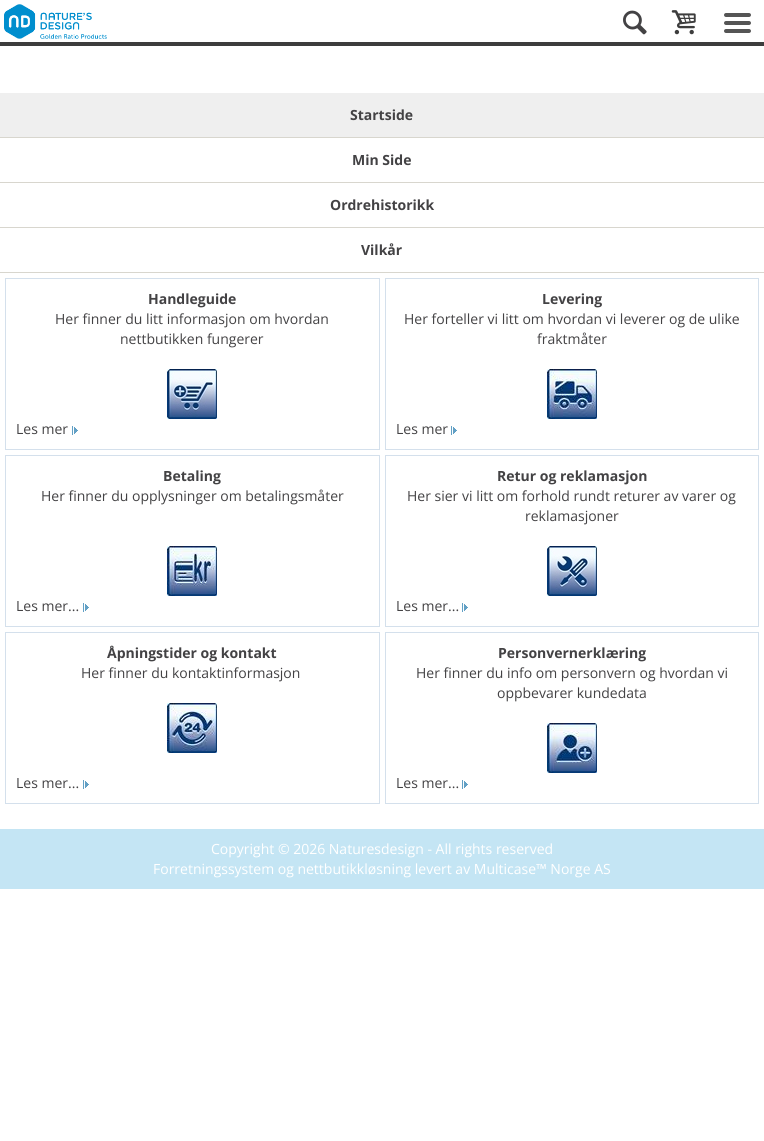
#include <cairo/cairo.h>
#include <math.h>
#include <stddef.h>

typedef struct { double x, y; const char *s; } line_t;
typedef struct { double x, y, w, h; unsigned color; } box_t;
static cairo_t *cr;

static void rgb(unsigned color)
{
	cairo_set_source_rgb(cr, (color >> 16) / 255.0, (color >> 8 & 255) / 255.0, (color & 255) / 255.0);
}

static void rrect(double x, double y, double w, double h, double r)
{
	cairo_new_sub_path(cr);
	cairo_arc(cr, x + w - r, y + h - r, r, 0, M_PI / 2);
	cairo_arc(cr, x + r, y + h - r, r, M_PI / 2, M_PI);
	cairo_arc(cr, x + r, y + r, r, M_PI, 1.5 * M_PI);
	cairo_arc(cr, x + w - r, y + r, r, 1.5 * M_PI, 2 * M_PI);
	cairo_close_path(cr);
}

static void image(const char *path, double x, double y, double w, double h)
{
	cairo_surface_t *image = cairo_image_surface_create_from_png(path);
	cairo_save(cr);
	cairo_set_source_surface(cr, image, x, y);
	cairo_rectangle(cr, x, y, w, h);
	cairo_fill(cr);
	cairo_restore(cr);
	cairo_surface_destroy(image);
}

int main(void) {
	cairo_surface_t *surface = cairo_image_surface_create(CAIRO_FORMAT_RGB24, 764, 1141);
	cr = cairo_create(surface);
	cairo_font_options_t *options = cairo_font_options_create();
	cairo_font_options_set_hint_metrics(options, CAIRO_HINT_METRICS_OFF);
	cairo_font_options_set_hint_style(options, CAIRO_HINT_STYLE_NONE);
	cairo_set_font_options(cr, options);
	cairo_set_miter_limit(cr, 4);
	rgb(0xffffff);
	cairo_paint(cr);
	rgb(0x3d3d3d);
	cairo_rectangle(cr, 0, 42, 764, 4);
	cairo_fill(cr);
	image("img/1.png", 4, 4, 103, 35);
	image("img/2.png", 623, 10, 24, 25);
	image("img/3.png", 671, 10, 25, 25);
	rgb(0x555555);
	rrect(724, 13, 27, 4, 2);
	cairo_fill(cr);
	rrect(724, 21, 27, 4, 2);
	cairo_fill(cr);
	rrect(724, 29, 27, 4, 2);
	cairo_fill(cr);
	{
		static const box_t items[] = {
			{0, 93, 764, 44, 0xefefef},
			{0, 137, 764, 1, 0xd8d6ce},
			{0, 182, 764, 1, 0xd8d6ce},
			{0, 227, 764, 1, 0xd8d6ce},
			{0, 272, 764, 1, 0xd8d6ce},
		};
		for (size_t i = 0; i < sizeof items / sizeof *items; i++) {
			rgb(items[i].color);
			cairo_rectangle(cr, items[i].x, items[i].y, items[i].w, items[i].h);
			cairo_fill(cr);
		}
	}
	cairo_rectangle(cr, 5.5, 278.5, 374, 171);
	rgb(0xd4e0ec);
	cairo_set_line_width(cr, 1);
	cairo_stroke(cr);
	image("img/4.png", 167, 369, 50, 50);
	image("img/5.png", 72, 426, 6, 9);
	cairo_rectangle(cr, 385.5, 278.5, 373, 171);
	cairo_stroke(cr);
	image("img/6.png", 547, 369, 50, 50);
	image("img/5.png", 451, 426, 6, 9);
	cairo_rectangle(cr, 5.5, 455.5, 374, 171);
	cairo_stroke(cr);
	image("img/7.png", 167, 546, 50, 50);
	image("img/5.png", 83, 603, 6, 9);
	cairo_rectangle(cr, 385.5, 455.5, 373, 171);
	cairo_stroke(cr);
	image("img/8.png", 547, 546, 50, 50);
	image("img/5.png", 462, 603, 6, 9);
	cairo_rectangle(cr, 5.5, 632.5, 374, 171);
	cairo_stroke(cr);
	image("img/9.png", 167, 703, 50, 50);
	image("img/5.png", 83, 780, 6, 9);
	cairo_rectangle(cr, 385.5, 632.5, 373, 171);
	cairo_stroke(cr);
	image("img/10.png", 547, 723, 50, 50);
	image("img/5.png", 462, 780, 6, 9);
	rgb(0xc4e5f4);
	cairo_rectangle(cr, 0, 829, 764, 60);
	cairo_fill(cr);
	cairo_select_font_face(cr, "Open Sans", CAIRO_FONT_SLANT_NORMAL, CAIRO_FONT_WEIGHT_BOLD);
	cairo_set_font_size(cr, 14);
	rgb(0x434244);
	{
		static const line_t items[] = {
			{350, 120, "Startside"},
			{352, 165, "Min Side"},
			{330, 210, "Ordrehistorikk"},
			{361, 255, "Vilkår"},
			{148, 304, "Handleguide"},
		};
		for (size_t i = 0; i < sizeof items / sizeof *items; i++) {
			cairo_move_to(cr, items[i].x, items[i].y);
			cairo_show_text(cr, items[i].s);
		}
	}
	cairo_select_font_face(cr, "Open Sans", CAIRO_FONT_SLANT_NORMAL, CAIRO_FONT_WEIGHT_NORMAL);
	{
		static const line_t items[] = {
			{55, 324, "Her finner du litt informasjon om hvordan"},
			{120, 344, "nettbutikken fungerer"},
			{16, 434, "Les mer"},
		};
		for (size_t i = 0; i < sizeof items / sizeof *items; i++) {
			cairo_move_to(cr, items[i].x, items[i].y);
			cairo_show_text(cr, items[i].s);
		}
	}
	cairo_select_font_face(cr, "Open Sans", CAIRO_FONT_SLANT_NORMAL, CAIRO_FONT_WEIGHT_BOLD);
	cairo_move_to(cr, 542, 304);
	cairo_show_text(cr, "Levering");
	cairo_select_font_face(cr, "Open Sans", CAIRO_FONT_SLANT_NORMAL, CAIRO_FONT_WEIGHT_NORMAL);
	{
		static const line_t items[] = {
			{404, 324, "Her forteller vi litt om hvordan vi leverer og de ulike"},
			{537, 344, "fraktmåter"},
			{396, 434, "Les mer"},
		};
		for (size_t i = 0; i < sizeof items / sizeof *items; i++) {
			cairo_move_to(cr, items[i].x, items[i].y);
			cairo_show_text(cr, items[i].s);
		}
	}
	cairo_select_font_face(cr, "Open Sans", CAIRO_FONT_SLANT_NORMAL, CAIRO_FONT_WEIGHT_BOLD);
	cairo_move_to(cr, 163, 481);
	cairo_show_text(cr, "Betaling");
	cairo_select_font_face(cr, "Open Sans", CAIRO_FONT_SLANT_NORMAL, CAIRO_FONT_WEIGHT_NORMAL);
	cairo_move_to(cr, 41, 501);
	cairo_show_text(cr, "Her finner du opplysninger om betalingsmåter");
	cairo_move_to(cr, 16, 611);
	cairo_show_text(cr, "Les mer...");
	cairo_select_font_face(cr, "Open Sans", CAIRO_FONT_SLANT_NORMAL, CAIRO_FONT_WEIGHT_BOLD);
	cairo_move_to(cr, 497, 481);
	cairo_show_text(cr, "Retur og reklamasjon");
	cairo_select_font_face(cr, "Open Sans", CAIRO_FONT_SLANT_NORMAL, CAIRO_FONT_WEIGHT_NORMAL);
	{
		static const line_t items[] = {
			{407, 501, "Her sier vi litt om forhold rundt returer av varer og"},
			{525, 521, "reklamasjoner"},
			{396, 611, "Les mer..."},
		};
		for (size_t i = 0; i < sizeof items / sizeof *items; i++) {
			cairo_move_to(cr, items[i].x, items[i].y);
			cairo_show_text(cr, items[i].s);
		}
	}
	cairo_select_font_face(cr, "Open Sans", CAIRO_FONT_SLANT_NORMAL, CAIRO_FONT_WEIGHT_BOLD);
	cairo_move_to(cr, 107, 658);
	cairo_show_text(cr, "Åpningstider og kontakt");
	cairo_select_font_face(cr, "Open Sans", CAIRO_FONT_SLANT_NORMAL, CAIRO_FONT_WEIGHT_NORMAL);
	cairo_move_to(cr, 81, 678);
	cairo_show_text(cr, "Her finner du kontaktinformasjon");
	cairo_move_to(cr, 16, 788);
	cairo_show_text(cr, "Les mer...");
	cairo_select_font_face(cr, "Open Sans", CAIRO_FONT_SLANT_NORMAL, CAIRO_FONT_WEIGHT_BOLD);
	cairo_move_to(cr, 498, 658);
	cairo_show_text(cr, "Personvernerklæring");
	cairo_select_font_face(cr, "Open Sans", CAIRO_FONT_SLANT_NORMAL, CAIRO_FONT_WEIGHT_NORMAL);
	{
		static const line_t items[] = {
			{416, 678, "Her finner du info om personvern og hvordan vi"},
			{497, 698, "oppbevarer kundedata"},
			{396, 788, "Les mer..."},
		};
		for (size_t i = 0; i < sizeof items / sizeof *items; i++) {
			cairo_move_to(cr, items[i].x, items[i].y);
			cairo_show_text(cr, items[i].s);
		}
	}
	rgb(0xffffff);
	cairo_move_to(cr, 211, 854);
	cairo_show_text(cr, "Copyright © 2026 Naturesdesign - All rights reserved");
	cairo_move_to(cr, 153, 874);
	cairo_show_text(cr, "Forretningssystem og nettbutikkløsning levert av Multicase™ Norge AS");
	cairo_surface_write_to_png(surface, "page.png");
	cairo_font_options_destroy(options);
	cairo_destroy(cr);
	cairo_surface_destroy(surface);
	return 0;
}
